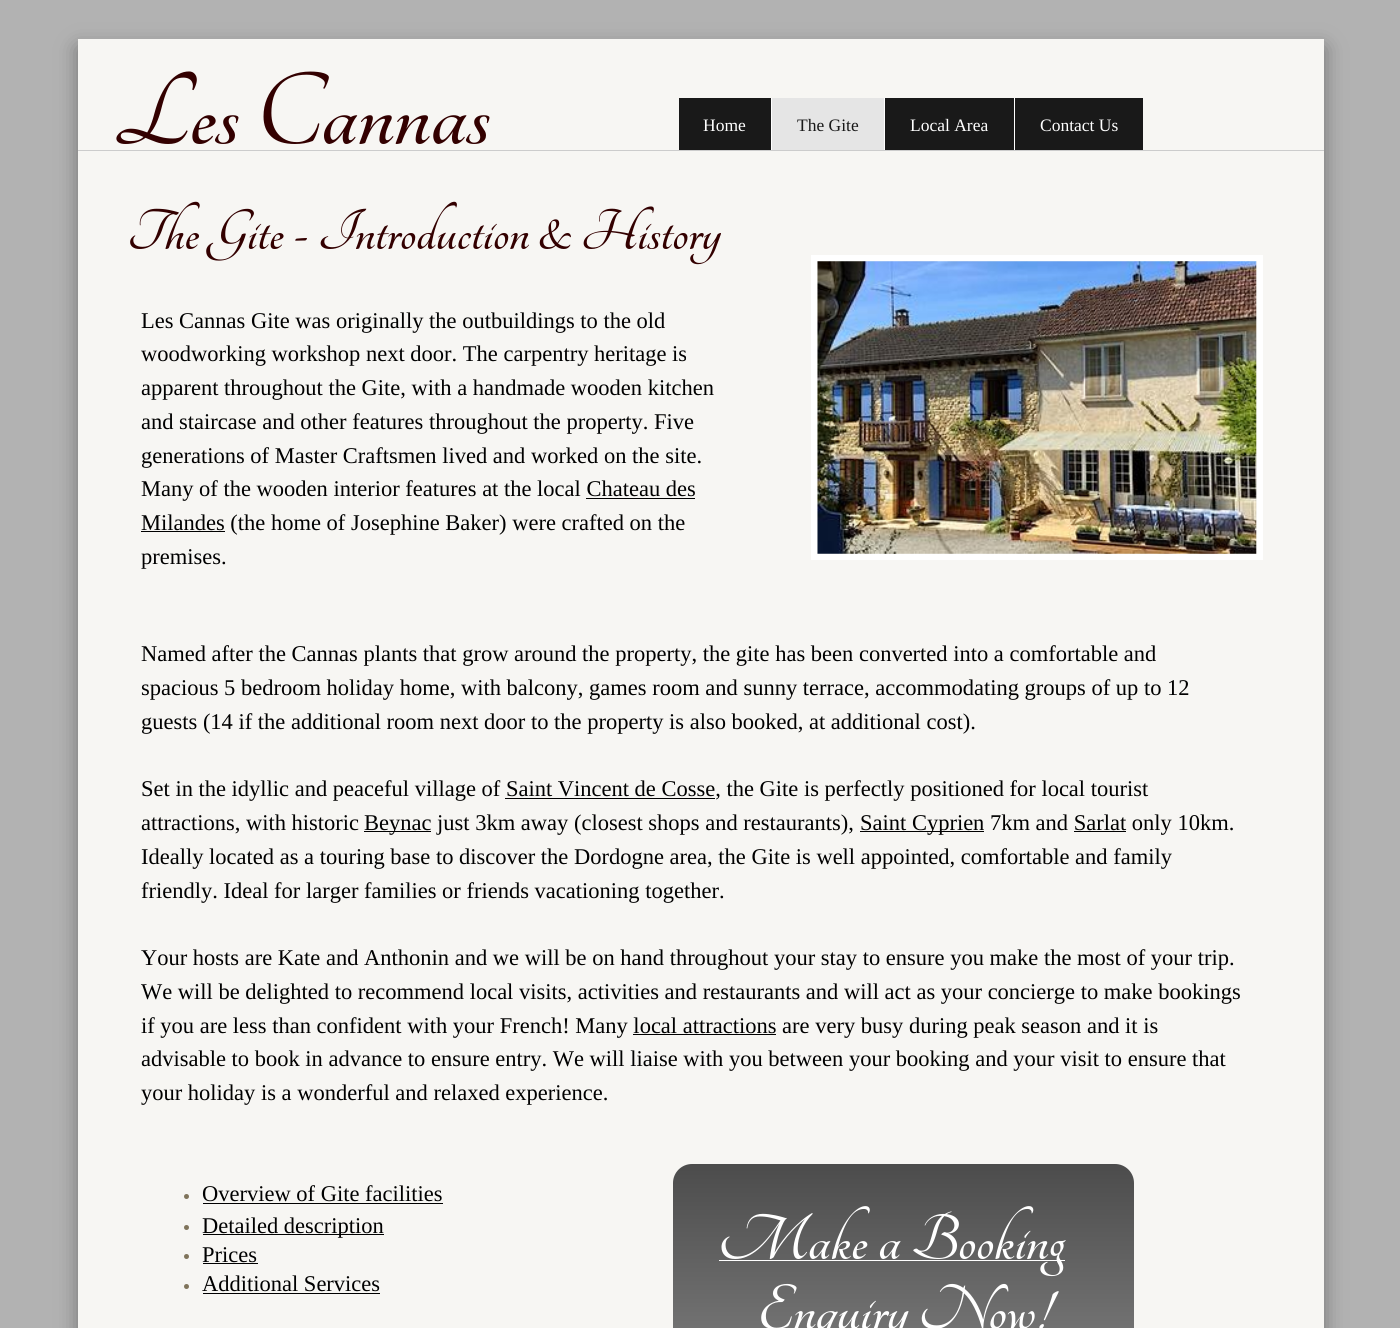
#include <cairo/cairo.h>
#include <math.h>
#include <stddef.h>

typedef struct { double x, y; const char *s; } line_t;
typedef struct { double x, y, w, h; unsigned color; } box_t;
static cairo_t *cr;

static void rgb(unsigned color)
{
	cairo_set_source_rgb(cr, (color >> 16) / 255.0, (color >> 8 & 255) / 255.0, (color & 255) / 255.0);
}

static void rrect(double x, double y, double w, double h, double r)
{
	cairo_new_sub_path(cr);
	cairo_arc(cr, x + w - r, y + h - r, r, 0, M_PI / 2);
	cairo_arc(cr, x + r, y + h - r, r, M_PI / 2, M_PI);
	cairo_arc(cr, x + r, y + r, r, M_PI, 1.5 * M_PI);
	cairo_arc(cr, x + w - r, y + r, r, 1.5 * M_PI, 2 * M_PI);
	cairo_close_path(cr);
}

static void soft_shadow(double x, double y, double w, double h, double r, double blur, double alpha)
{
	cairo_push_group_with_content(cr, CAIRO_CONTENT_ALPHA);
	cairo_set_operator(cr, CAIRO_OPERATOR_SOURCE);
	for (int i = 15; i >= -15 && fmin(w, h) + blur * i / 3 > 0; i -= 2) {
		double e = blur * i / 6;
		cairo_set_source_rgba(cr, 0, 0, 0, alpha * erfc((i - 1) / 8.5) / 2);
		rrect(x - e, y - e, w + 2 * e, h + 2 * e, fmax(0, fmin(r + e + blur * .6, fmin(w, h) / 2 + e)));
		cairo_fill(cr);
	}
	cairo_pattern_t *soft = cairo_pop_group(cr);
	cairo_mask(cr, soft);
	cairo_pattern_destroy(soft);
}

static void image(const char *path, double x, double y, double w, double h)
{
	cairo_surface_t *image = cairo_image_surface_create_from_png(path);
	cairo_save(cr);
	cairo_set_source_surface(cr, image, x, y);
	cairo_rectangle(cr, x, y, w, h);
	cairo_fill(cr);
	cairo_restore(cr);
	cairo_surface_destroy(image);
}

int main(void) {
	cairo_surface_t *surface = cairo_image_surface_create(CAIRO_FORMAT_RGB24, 1400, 1328);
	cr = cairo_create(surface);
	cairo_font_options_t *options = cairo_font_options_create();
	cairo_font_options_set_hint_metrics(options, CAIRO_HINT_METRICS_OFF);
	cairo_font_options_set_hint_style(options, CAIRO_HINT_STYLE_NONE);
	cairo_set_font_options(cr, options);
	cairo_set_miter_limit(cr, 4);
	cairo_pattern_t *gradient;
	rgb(0xb2b2b2);
	cairo_paint(cr);
	rgb(0x323232);
	soft_shadow(78, 48, 1246, 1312, 0, 10.5, 0.5);
	{
		static const box_t items[] = {
			{78, 39, 1246, 1289, 0xf7f6f3},
			{679, 98, 92, 52, 0x191919},
			{772, 98, 112, 52, 0xe5e5e5},
			{771, 98, 1, 52, 0xffffff},
			{885, 98, 129, 52, 0x191919},
			{884, 98, 1, 52, 0xffffff},
			{1015, 98, 128, 52, 0x191919},
			{1014, 98, 1, 52, 0xffffff},
			{78, 150, 1246, 1, 0xcccccc},
			{586, 498, 109, 1, 0x000000},
			{141, 531, 84, 1, 0x000000},
		};
		for (size_t i = 0; i < sizeof items / sizeof *items; i++) {
			rgb(items[i].color);
			cairo_rectangle(cr, items[i].x, items[i].y, items[i].w, items[i].h);
			cairo_fill(cr);
		}
	}
	cairo_rectangle(cr, 814, 258, 446, 299);
	rgb(0xffffff);
	cairo_set_line_width(cr, 6);
	cairo_stroke(cr);
	image("img/1.png", 817, 261, 440, 293);
	{
		static const box_t items[] = {
			{505, 798, 210, 1, 0x000000},
			{364, 831, 67, 1, 0x000000},
			{860, 831, 124, 1, 0x000000},
			{1074, 831, 52, 1, 0x000000},
			{633, 1034, 143, 1, 0x000000},
		};
		for (size_t i = 0; i < sizeof items / sizeof *items; i++) {
			rgb(items[i].color);
			cairo_rectangle(cr, items[i].x, items[i].y, items[i].w, items[i].h);
			cairo_fill(cr);
		}
	}
	rgb(0x80745b);
	cairo_arc(cr, 186.5, 1196.5, 2.5, 0, 2 * M_PI);
	cairo_fill(cr);
	rgb(0x000000);
	cairo_rectangle(cr, 203, 1203, 240, 1);
	cairo_fill(cr);
	rgb(0x80745b);
	cairo_arc(cr, 186.5, 1227.5, 2.5, 0, 2 * M_PI);
	cairo_fill(cr);
	rgb(0x000000);
	cairo_rectangle(cr, 203, 1234, 181, 1);
	cairo_fill(cr);
	rgb(0x80745b);
	cairo_arc(cr, 186.5, 1256.5, 2.5, 0, 2 * M_PI);
	cairo_fill(cr);
	rgb(0x000000);
	cairo_rectangle(cr, 203, 1263, 55, 1);
	cairo_fill(cr);
	rgb(0x80745b);
	cairo_arc(cr, 186.5, 1286.5, 2.5, 0, 2 * M_PI);
	cairo_fill(cr);
	rgb(0x000000);
	cairo_rectangle(cr, 203, 1293, 177, 1);
	cairo_fill(cr);
	gradient = cairo_pattern_create_linear(903, 1164, 903, 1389);
	cairo_pattern_add_color_stop_rgba(gradient, 0, 0.298, 0.298, 0.298, 1);
	cairo_pattern_add_color_stop_rgba(gradient, 1, 0.498, 0.498, 0.498, 1);
	cairo_set_source(cr, gradient);
	cairo_pattern_destroy(gradient);
	cairo_new_path(cr);
	cairo_move_to(cr, 692, 1164);
	cairo_line_to(cr, 1115, 1164);
	cairo_curve_to(cr, 1125.5, 1164, 1134, 1172.5, 1134, 1183);
	cairo_line_to(cr, 1134, 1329);
	cairo_line_to(cr, 673, 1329);
	cairo_line_to(cr, 673, 1183);
	cairo_curve_to(cr, 673, 1172.5, 681.5, 1164, 692, 1164);
	cairo_close_path(cr);
	cairo_fill(cr);
	rgb(0xffffff);
	cairo_rectangle(cr, 719, 1260, 346, 1);
	cairo_fill(cr);
	cairo_select_font_face(cr, "Tangerine", CAIRO_FONT_SLANT_NORMAL, CAIRO_FONT_WEIGHT_BOLD);
	cairo_set_font_size(cr, 112.5);
	rgb(0x330000);
	cairo_move_to(cr, 113, 144);
	cairo_show_text(cr, "Les Cannas");
	cairo_select_font_face(cr, "Liberation Serif", CAIRO_FONT_SLANT_NORMAL, CAIRO_FONT_WEIGHT_NORMAL);
	cairo_set_font_size(cr, 17.5);
	rgb(0xffffff);
	cairo_move_to(cr, 703, 131);
	cairo_show_text(cr, "Home");
	rgb(0x191919);
	cairo_move_to(cr, 797, 131);
	cairo_show_text(cr, "The Gite");
	rgb(0xffffff);
	cairo_move_to(cr, 910, 131);
	cairo_show_text(cr, "Local Area");
	cairo_move_to(cr, 1040, 131);
	cairo_show_text(cr, "Contact Us");
	cairo_select_font_face(cr, "Tangerine", CAIRO_FONT_SLANT_NORMAL, CAIRO_FONT_WEIGHT_BOLD);
	cairo_set_font_size(cr, 62.5);
	rgb(0x330000);
	cairo_move_to(cr, 127, 249);
	cairo_show_text(cr, "The Gite - Introduction & History");
	cairo_select_font_face(cr, "Liberation Serif", CAIRO_FONT_SLANT_NORMAL, CAIRO_FONT_WEIGHT_NORMAL);
	cairo_set_font_size(cr, 22.5);
	rgb(0x000000);
	{
		static const line_t items[] = {
			{141, 328, "Les Cannas Gite was originally the outbuildings to the old"},
			{141, 361, "woodworking workshop next door. The carpentry heritage is"},
			{141, 395, "apparent throughout the Gite, with a handmade wooden kitchen"},
			{141, 429, "and staircase and other features throughout the property. Five"},
			{141, 463, "generations of Master Craftsmen lived and worked on the site."},
			{141, 496, "Many of the wooden interior features at the local Chateau des"},
			{141, 530, "Milandes (the home of Josephine Baker) were crafted on the"},
			{141, 564, "premises."},
			{141, 661, "Named after the Cannas plants that grow around the property, the gite has been converted into a comfortable and"},
			{141, 695, "spacious 5 bedroom holiday home, with balcony, games room and sunny terrace, accommodating groups of up to 12"},
			{141, 729, "guests (14 if the additional room next door to the property is also booked, at additional cost)."},
			{141, 796, "Set in the idyllic and peaceful village of Saint Vincent de Cosse, the Gite is perfectly positioned for local tourist"},
			{141, 830, "attractions, with historic"},
			{364, 830, "Beynac just 3km away (closest shops and restaurants),"},
			{860, 830, "Saint Cyprien 7km and Sarlat only 10km."},
			{141, 864, "Ideally located as a touring base to discover the Dordogne area, the Gite is well appointed, comfortable and family"},
			{141, 898, "friendly. Ideal for larger families or friends vacationing together."},
			{141, 965, "Your hosts are Kate and Anthonin and we will be on hand throughout your stay to ensure you make the most of your trip."},
			{141, 999, "We will be delighted to recommend local visits, activities and restaurants and will act as your concierge to make bookings"},
			{141, 1033, "if you are less than confident with your French! Many local attractions are very busy during peak season and it is"},
			{141, 1066, "advisable to book in advance to ensure entry. We will liaise with you between your booking and your visit to ensure that"},
			{141, 1100, "your holiday is a wonderful and relaxed experience."},
			{202, 1201, "Overview of Gite facilities"},
			{202, 1233, "Detailed description"},
			{202, 1262, "Prices"},
			{202, 1291, "Additional Services"},
		};
		for (size_t i = 0; i < sizeof items / sizeof *items; i++) {
			cairo_move_to(cr, items[i].x, items[i].y);
			cairo_show_text(cr, items[i].s);
		}
	}
	cairo_select_font_face(cr, "Tangerine", CAIRO_FONT_SLANT_NORMAL, CAIRO_FONT_WEIGHT_BOLD);
	cairo_set_font_size(cr, 70);
	rgb(0xffffff);
	cairo_move_to(cr, 718, 1259);
	cairo_show_text(cr, "Make a Booking");
	cairo_move_to(cr, 757, 1329);
	cairo_show_text(cr, "Enquiry Now!");
	cairo_surface_write_to_png(surface, "page.png");
	cairo_font_options_destroy(options);
	cairo_destroy(cr);
	cairo_surface_destroy(surface);
	return 0;
}
